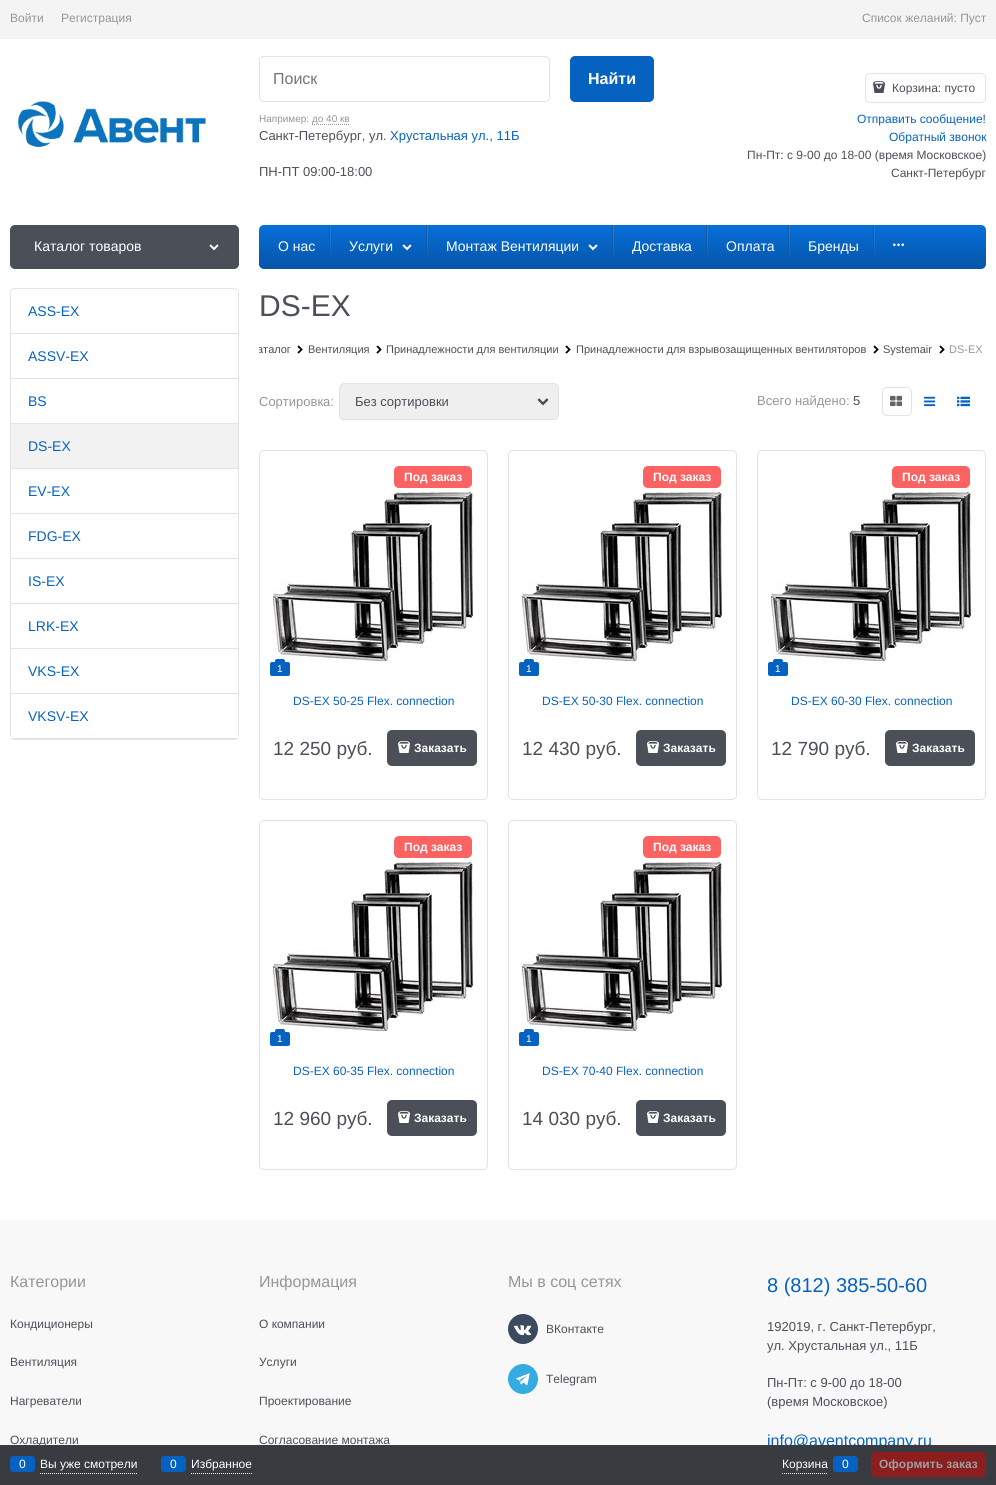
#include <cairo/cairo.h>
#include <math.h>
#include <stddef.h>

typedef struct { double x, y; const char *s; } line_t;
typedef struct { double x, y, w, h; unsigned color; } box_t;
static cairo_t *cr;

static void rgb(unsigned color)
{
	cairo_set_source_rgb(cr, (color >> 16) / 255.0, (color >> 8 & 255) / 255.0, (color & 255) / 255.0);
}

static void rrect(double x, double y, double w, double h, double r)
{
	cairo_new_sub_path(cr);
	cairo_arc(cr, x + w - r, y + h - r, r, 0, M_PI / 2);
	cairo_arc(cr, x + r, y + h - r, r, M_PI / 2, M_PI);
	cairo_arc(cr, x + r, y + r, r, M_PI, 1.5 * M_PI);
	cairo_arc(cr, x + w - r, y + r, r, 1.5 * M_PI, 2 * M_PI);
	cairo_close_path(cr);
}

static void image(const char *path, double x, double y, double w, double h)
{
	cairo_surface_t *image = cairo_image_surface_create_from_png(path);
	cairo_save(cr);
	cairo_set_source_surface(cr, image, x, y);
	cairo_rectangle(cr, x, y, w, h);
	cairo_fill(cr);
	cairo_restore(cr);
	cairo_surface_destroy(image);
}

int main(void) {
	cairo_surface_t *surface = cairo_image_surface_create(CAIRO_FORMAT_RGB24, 996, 1485);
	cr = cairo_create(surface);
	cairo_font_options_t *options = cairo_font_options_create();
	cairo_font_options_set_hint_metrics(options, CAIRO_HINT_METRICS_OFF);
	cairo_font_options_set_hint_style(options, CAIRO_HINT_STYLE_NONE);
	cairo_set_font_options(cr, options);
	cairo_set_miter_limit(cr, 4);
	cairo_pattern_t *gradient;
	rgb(0xffffff);
	cairo_paint(cr);
	rgb(0xf4f4f4);
	cairo_rectangle(cr, 0, 0, 996, 39);
	cairo_fill(cr);
	image("img/1.png", 17, 101, 189, 46);
	rrect(259.5, 56.5, 290, 45, 4.5);
	rgb(0xe2e3e4);
	cairo_set_line_width(cr, 1);
	cairo_stroke(cr);
	cairo_new_path(cr);
	cairo_move_to(cr, 312, 124.5);
	cairo_line_to(cr, 350, 124.5);
	rgb(0x94969b);
	cairo_set_dash(cr, (double[]){1, 1}, 2, 0);
	cairo_stroke(cr);
	rgb(0x0662c1);
	rrect(570, 56, 84, 46, 5);
	cairo_fill(cr);
	rrect(865.5, 73.5, 120, 29, 4.5);
	rgb(0xe2e3e4);
	cairo_set_dash(cr, NULL, 0, 0);
	cairo_stroke(cr);
	image("img/2.png", 873, 81, 12, 12);
	rgb(0x4b4f58);
	rrect(10, 225, 229, 44, 5);
	cairo_fill(cr);
	image("img/3.png", 209, 244, 10, 7);
	gradient = cairo_pattern_create_linear(623, 225, 623, 269);
	cairo_pattern_add_color_stop_rgba(gradient, 0, 0.027, 0.435, 0.855, 1);
	cairo_pattern_add_color_stop_rgba(gradient, 0.5, 0.024, 0.384, 0.757, 1);
	cairo_pattern_add_color_stop_rgba(gradient, 1, 0.02, 0.333, 0.659, 1);
	cairo_set_source(cr, gradient);
	cairo_pattern_destroy(gradient);
	rrect(259, 225, 727, 44, 5);
	cairo_fill(cr);
	gradient = cairo_pattern_create_linear(331, 225, 331, 269);
	cairo_pattern_add_color_stop_rgba(gradient, 0, 1, 1, 1, 0.14);
	cairo_pattern_add_color_stop_rgba(gradient, 0.72, 1, 1, 1, 0.02);
	cairo_pattern_add_color_stop_rgba(gradient, 1, 1, 1, 1, 0);
	cairo_set_source(cr, gradient);
	cairo_pattern_destroy(gradient);
	cairo_rectangle(cr, 330, 225, 1, 31);
	cairo_fill(cr);
	gradient = cairo_pattern_create_linear(330, 225, 330, 269);
	cairo_pattern_add_color_stop_rgba(gradient, 0, 0.224, 0.224, 0.224, 0.39);
	cairo_pattern_add_color_stop_rgba(gradient, 0.17, 0.224, 0.224, 0.224, 0.33);
	cairo_pattern_add_color_stop_rgba(gradient, 0.61, 0.224, 0.224, 0.224, 0.12);
	cairo_pattern_add_color_stop_rgba(gradient, 0.96, 0.224, 0.224, 0.224, 0.01);
	cairo_pattern_add_color_stop_rgba(gradient, 0.98, 1, 1, 1, 0.01);
	cairo_pattern_add_color_stop_rgba(gradient, 1, 1, 1, 1, 0);
	cairo_set_source(cr, gradient);
	cairo_pattern_destroy(gradient);
	cairo_rectangle(cr, 329, 225, 1, 44);
	cairo_fill(cr);
	image("img/4.png", 402, 244, 10, 7);
	gradient = cairo_pattern_create_linear(428, 225, 428, 269);
	cairo_pattern_add_color_stop_rgba(gradient, 0, 1, 1, 1, 0.14);
	cairo_pattern_add_color_stop_rgba(gradient, 0.72, 1, 1, 1, 0.02);
	cairo_pattern_add_color_stop_rgba(gradient, 1, 1, 1, 1, 0);
	cairo_set_source(cr, gradient);
	cairo_pattern_destroy(gradient);
	cairo_rectangle(cr, 427, 225, 1, 31);
	cairo_fill(cr);
	gradient = cairo_pattern_create_linear(427, 225, 427, 269);
	cairo_pattern_add_color_stop_rgba(gradient, 0, 0.224, 0.224, 0.224, 0.39);
	cairo_pattern_add_color_stop_rgba(gradient, 0.17, 0.224, 0.224, 0.224, 0.33);
	cairo_pattern_add_color_stop_rgba(gradient, 0.61, 0.224, 0.224, 0.224, 0.12);
	cairo_pattern_add_color_stop_rgba(gradient, 0.96, 0.224, 0.224, 0.224, 0.01);
	cairo_pattern_add_color_stop_rgba(gradient, 0.98, 1, 1, 1, 0.01);
	cairo_pattern_add_color_stop_rgba(gradient, 1, 1, 1, 1, 0);
	cairo_set_source(cr, gradient);
	cairo_pattern_destroy(gradient);
	cairo_rectangle(cr, 426, 225, 1, 44);
	cairo_fill(cr);
	image("img/4.png", 588, 244, 10, 7);
	gradient = cairo_pattern_create_linear(614, 225, 614, 269);
	cairo_pattern_add_color_stop_rgba(gradient, 0, 1, 1, 1, 0.14);
	cairo_pattern_add_color_stop_rgba(gradient, 0.72, 1, 1, 1, 0.02);
	cairo_pattern_add_color_stop_rgba(gradient, 1, 1, 1, 1, 0);
	cairo_set_source(cr, gradient);
	cairo_pattern_destroy(gradient);
	cairo_rectangle(cr, 613, 225, 1, 31);
	cairo_fill(cr);
	gradient = cairo_pattern_create_linear(613, 225, 613, 269);
	cairo_pattern_add_color_stop_rgba(gradient, 0, 0.224, 0.224, 0.224, 0.39);
	cairo_pattern_add_color_stop_rgba(gradient, 0.17, 0.224, 0.224, 0.224, 0.33);
	cairo_pattern_add_color_stop_rgba(gradient, 0.61, 0.224, 0.224, 0.224, 0.12);
	cairo_pattern_add_color_stop_rgba(gradient, 0.96, 0.224, 0.224, 0.224, 0.01);
	cairo_pattern_add_color_stop_rgba(gradient, 0.98, 1, 1, 1, 0.01);
	cairo_pattern_add_color_stop_rgba(gradient, 1, 1, 1, 1, 0);
	cairo_set_source(cr, gradient);
	cairo_pattern_destroy(gradient);
	cairo_rectangle(cr, 612, 225, 1, 44);
	cairo_fill(cr);
	gradient = cairo_pattern_create_linear(708, 225, 708, 269);
	cairo_pattern_add_color_stop_rgba(gradient, 0, 1, 1, 1, 0.14);
	cairo_pattern_add_color_stop_rgba(gradient, 0.72, 1, 1, 1, 0.02);
	cairo_pattern_add_color_stop_rgba(gradient, 1, 1, 1, 1, 0);
	cairo_set_source(cr, gradient);
	cairo_pattern_destroy(gradient);
	cairo_rectangle(cr, 707, 225, 1, 31);
	cairo_fill(cr);
	gradient = cairo_pattern_create_linear(707, 225, 707, 269);
	cairo_pattern_add_color_stop_rgba(gradient, 0, 0.224, 0.224, 0.224, 0.39);
	cairo_pattern_add_color_stop_rgba(gradient, 0.17, 0.224, 0.224, 0.224, 0.33);
	cairo_pattern_add_color_stop_rgba(gradient, 0.61, 0.224, 0.224, 0.224, 0.12);
	cairo_pattern_add_color_stop_rgba(gradient, 0.96, 0.224, 0.224, 0.224, 0.01);
	cairo_pattern_add_color_stop_rgba(gradient, 0.98, 1, 1, 1, 0.01);
	cairo_pattern_add_color_stop_rgba(gradient, 1, 1, 1, 1, 0);
	cairo_set_source(cr, gradient);
	cairo_pattern_destroy(gradient);
	cairo_rectangle(cr, 706, 225, 1, 44);
	cairo_fill(cr);
	gradient = cairo_pattern_create_linear(790, 225, 790, 269);
	cairo_pattern_add_color_stop_rgba(gradient, 0, 1, 1, 1, 0.14);
	cairo_pattern_add_color_stop_rgba(gradient, 0.72, 1, 1, 1, 0.02);
	cairo_pattern_add_color_stop_rgba(gradient, 1, 1, 1, 1, 0);
	cairo_set_source(cr, gradient);
	cairo_pattern_destroy(gradient);
	cairo_rectangle(cr, 789, 225, 1, 31);
	cairo_fill(cr);
	gradient = cairo_pattern_create_linear(789, 225, 789, 269);
	cairo_pattern_add_color_stop_rgba(gradient, 0, 0.224, 0.224, 0.224, 0.39);
	cairo_pattern_add_color_stop_rgba(gradient, 0.17, 0.224, 0.224, 0.224, 0.33);
	cairo_pattern_add_color_stop_rgba(gradient, 0.61, 0.224, 0.224, 0.224, 0.12);
	cairo_pattern_add_color_stop_rgba(gradient, 0.96, 0.224, 0.224, 0.224, 0.01);
	cairo_pattern_add_color_stop_rgba(gradient, 0.98, 1, 1, 1, 0.01);
	cairo_pattern_add_color_stop_rgba(gradient, 1, 1, 1, 1, 0);
	cairo_set_source(cr, gradient);
	cairo_pattern_destroy(gradient);
	cairo_rectangle(cr, 788, 225, 1, 44);
	cairo_fill(cr);
	gradient = cairo_pattern_create_linear(875, 225, 875, 269);
	cairo_pattern_add_color_stop_rgba(gradient, 0, 1, 1, 1, 0.14);
	cairo_pattern_add_color_stop_rgba(gradient, 0.72, 1, 1, 1, 0.02);
	cairo_pattern_add_color_stop_rgba(gradient, 1, 1, 1, 1, 0);
	cairo_set_source(cr, gradient);
	cairo_pattern_destroy(gradient);
	cairo_rectangle(cr, 874, 225, 1, 31);
	cairo_fill(cr);
	gradient = cairo_pattern_create_linear(874, 225, 874, 269);
	cairo_pattern_add_color_stop_rgba(gradient, 0, 0.224, 0.224, 0.224, 0.39);
	cairo_pattern_add_color_stop_rgba(gradient, 0.17, 0.224, 0.224, 0.224, 0.33);
	cairo_pattern_add_color_stop_rgba(gradient, 0.61, 0.224, 0.224, 0.224, 0.12);
	cairo_pattern_add_color_stop_rgba(gradient, 0.96, 0.224, 0.224, 0.224, 0.01);
	cairo_pattern_add_color_stop_rgba(gradient, 0.98, 1, 1, 1, 0.01);
	cairo_pattern_add_color_stop_rgba(gradient, 1, 1, 1, 1, 0);
	cairo_set_source(cr, gradient);
	cairo_pattern_destroy(gradient);
	cairo_rectangle(cr, 873, 225, 1, 44);
	cairo_fill(cr);
	image("img/5.png", 893, 243, 11, 4);
	rrect(10.5, 288.5, 228, 451, 4.5);
	rgb(0xe2e3e4);
	cairo_stroke(cr);
	cairo_rectangle(cr, 11, 333, 227, 1);
	cairo_fill(cr);
	rgb(0xffffff);
	cairo_new_path(cr);
	cairo_move_to(cr, 16, 289);
	cairo_line_to(cr, 233, 289);
	cairo_curve_to(cr, 236, 289, 238, 291, 238, 294);
	cairo_line_to(cr, 238, 333);
	cairo_line_to(cr, 11, 333);
	cairo_line_to(cr, 11, 294);
	cairo_curve_to(cr, 11, 291, 13, 289, 16, 289);
	cairo_close_path(cr);
	cairo_fill(cr);
	{
		static const box_t items[] = {
			{11, 378, 227, 1, 0xe2e3e4},
			{11, 423, 227, 1, 0xe2e3e4},
			{11, 468, 227, 1, 0xe2e3e4},
			{11, 424, 227, 44, 0xf2f2f2},
			{11, 513, 227, 1, 0xe2e3e4},
			{11, 558, 227, 1, 0xe2e3e4},
			{11, 603, 227, 1, 0xe2e3e4},
			{11, 648, 227, 1, 0xe2e3e4},
			{11, 693, 227, 1, 0xe2e3e4},
			{11, 738, 227, 1, 0xe2e3e4},
			{11, 736, 227, 2, 0xffffff},
		};
		for (size_t i = 0; i < sizeof items / sizeof *items; i++) {
			rgb(items[i].color);
			cairo_rectangle(cr, items[i].x, items[i].y, items[i].w, items[i].h);
			cairo_fill(cr);
		}
	}
	image("img/6.png", 297, 345, 6, 9);
	image("img/6.png", 376, 345, 6, 9);
	image("img/6.png", 565, 345, 6, 9);
	image("img/6.png", 873, 345, 6, 9);
	image("img/6.png", 939, 345, 6, 9);
	rgb(0xefefef);
	rrect(339.5, 383.5, 219, 36, 4.5);
	cairo_fill_preserve(cr);
	rgb(0xe2e3e4);
	cairo_stroke(cr);
	image("img/7.png", 537, 398, 12, 8);
	rrect(882.5, 387.5, 29, 28, 4.5);
	cairo_stroke(cr);
	image("img/8.png", 890, 395, 13, 12);
	image("img/9.png", 924, 396, 12, 11);
	image("img/10.png", 957, 396, 13, 11);
	rrect(259.5, 450.5, 228, 349, 4.5);
	cairo_stroke(cr);
	rgb(0xfb6363);
	rrect(394, 466, 78, 22, 5);
	cairo_fill(cr);
	image("img/11.png", 273, 492, 200, 169);
	rgb(0x0662c1);
	rrect(270, 662, 20, 14, 2);
	cairo_fill(cr);
	cairo_new_path(cr);
	cairo_move_to(cr, 277, 659);
	cairo_line_to(cr, 283, 659);
	cairo_curve_to(cr, 284, 659, 285, 660, 285, 661);
	cairo_line_to(cr, 285, 662);
	cairo_line_to(cr, 275, 662);
	cairo_line_to(cr, 275, 661);
	cairo_curve_to(cr, 275, 660, 276, 659, 277, 659);
	cairo_close_path(cr);
	cairo_fill(cr);
	rgb(0x4b4f58);
	rrect(387, 730, 90, 36, 5);
	cairo_fill(cr);
	image("img/12.png", 398, 741, 12, 12);
	rrect(508.5, 450.5, 228, 349, 4.5);
	rgb(0xe2e3e4);
	cairo_stroke(cr);
	rgb(0xfb6363);
	rrect(643, 466, 78, 22, 5);
	cairo_fill(cr);
	image("img/11.png", 522, 492, 200, 169);
	rgb(0x0662c1);
	rrect(519, 662, 20, 14, 2);
	cairo_fill(cr);
	cairo_new_path(cr);
	cairo_move_to(cr, 526, 659);
	cairo_line_to(cr, 532, 659);
	cairo_curve_to(cr, 533, 659, 534, 660, 534, 661);
	cairo_line_to(cr, 534, 662);
	cairo_line_to(cr, 524, 662);
	cairo_line_to(cr, 524, 661);
	cairo_curve_to(cr, 524, 660, 525, 659, 526, 659);
	cairo_close_path(cr);
	cairo_fill(cr);
	rgb(0x4b4f58);
	rrect(636, 730, 90, 36, 5);
	cairo_fill(cr);
	image("img/12.png", 647, 741, 12, 12);
	rrect(757.5, 450.5, 228, 349, 4.5);
	rgb(0xe2e3e4);
	cairo_stroke(cr);
	rgb(0xfb6363);
	rrect(892, 466, 78, 22, 5);
	cairo_fill(cr);
	image("img/11.png", 771, 492, 200, 169);
	rgb(0x0662c1);
	rrect(768, 662, 20, 14, 2);
	cairo_fill(cr);
	cairo_new_path(cr);
	cairo_move_to(cr, 775, 659);
	cairo_line_to(cr, 781, 659);
	cairo_curve_to(cr, 782, 659, 783, 660, 783, 661);
	cairo_line_to(cr, 783, 662);
	cairo_line_to(cr, 773, 662);
	cairo_line_to(cr, 773, 661);
	cairo_curve_to(cr, 773, 660, 774, 659, 775, 659);
	cairo_close_path(cr);
	cairo_fill(cr);
	rgb(0x4b4f58);
	rrect(885, 730, 90, 36, 5);
	cairo_fill(cr);
	image("img/12.png", 896, 741, 12, 12);
	rrect(259.5, 820.5, 228, 349, 4.5);
	rgb(0xe2e3e4);
	cairo_stroke(cr);
	rgb(0xfb6363);
	rrect(394, 836, 78, 22, 5);
	cairo_fill(cr);
	image("img/11.png", 273, 862, 200, 169);
	rgb(0x0662c1);
	rrect(270, 1032, 20, 14, 2);
	cairo_fill(cr);
	cairo_new_path(cr);
	cairo_move_to(cr, 277, 1029);
	cairo_line_to(cr, 283, 1029);
	cairo_curve_to(cr, 284, 1029, 285, 1030, 285, 1031);
	cairo_line_to(cr, 285, 1032);
	cairo_line_to(cr, 275, 1032);
	cairo_line_to(cr, 275, 1031);
	cairo_curve_to(cr, 275, 1030, 276, 1029, 277, 1029);
	cairo_close_path(cr);
	cairo_fill(cr);
	rgb(0x4b4f58);
	rrect(387, 1100, 90, 36, 5);
	cairo_fill(cr);
	image("img/12.png", 398, 1111, 12, 12);
	rrect(508.5, 820.5, 228, 349, 4.5);
	rgb(0xe2e3e4);
	cairo_stroke(cr);
	rgb(0xfb6363);
	rrect(643, 836, 78, 22, 5);
	cairo_fill(cr);
	image("img/11.png", 522, 862, 200, 169);
	rgb(0x0662c1);
	rrect(519, 1032, 20, 14, 2);
	cairo_fill(cr);
	cairo_new_path(cr);
	cairo_move_to(cr, 526, 1029);
	cairo_line_to(cr, 532, 1029);
	cairo_curve_to(cr, 533, 1029, 534, 1030, 534, 1031);
	cairo_line_to(cr, 534, 1032);
	cairo_line_to(cr, 524, 1032);
	cairo_line_to(cr, 524, 1031);
	cairo_curve_to(cr, 524, 1030, 525, 1029, 526, 1029);
	cairo_close_path(cr);
	cairo_fill(cr);
	rgb(0x4b4f58);
	rrect(636, 1100, 90, 36, 5);
	cairo_fill(cr);
	image("img/12.png", 647, 1111, 12, 12);
	rgb(0xf8f8f8);
	cairo_rectangle(cr, 0, 1220, 996, 225);
	cairo_fill(cr);
	rgb(0x3b4a5f);
	cairo_arc(cr, 523, 1329, 15, 0, 2 * M_PI);
	cairo_fill(cr);
	image("img/13.png", 514, 1325, 18, 11);
	rgb(0x35ace1);
	cairo_arc(cr, 523, 1379, 15, 0, 2 * M_PI);
	cairo_fill(cr);
	image("img/14.png", 516, 1373, 14, 13);
	cairo_select_font_face(cr, "Liberation Sans", CAIRO_FONT_SLANT_NORMAL, CAIRO_FONT_WEIGHT_NORMAL);
	cairo_set_font_size(cr, 12);
	rgb(0x94969b);
	{
		static const line_t items[] = {
			{10, 22, "Войти"},
			{61, 22, "Регистрация"},
			{862, 22, "Список желаний: Пуст"},
		};
		for (size_t i = 0; i < sizeof items / sizeof *items; i++) {
			cairo_move_to(cr, items[i].x, items[i].y);
			cairo_show_text(cr, items[i].s);
		}
	}
	cairo_set_font_size(cr, 16);
	rgb(0x757575);
	cairo_move_to(cr, 273, 84);
	cairo_show_text(cr, "Поиск");
	cairo_set_font_size(cr, 10);
	rgb(0x94969b);
	cairo_move_to(cr, 259, 122);
	cairo_show_text(cr, "Например: до 40 кв");
	cairo_select_font_face(cr, "Liberation Sans", CAIRO_FONT_SLANT_NORMAL, CAIRO_FONT_WEIGHT_BOLD);
	cairo_set_font_size(cr, 16);
	rgb(0xffffff);
	cairo_move_to(cr, 588, 84);
	cairo_show_text(cr, "Найти");
	cairo_select_font_face(cr, "Liberation Sans", CAIRO_FONT_SLANT_NORMAL, CAIRO_FONT_WEIGHT_NORMAL);
	cairo_set_font_size(cr, 13);
	rgb(0x4b4f58);
	cairo_move_to(cr, 259, 140);
	cairo_show_text(cr, "Санкт-Петербург, ул.");
	rgb(0x0662c1);
	cairo_move_to(cr, 390, 140);
	cairo_show_text(cr, "Хрустальная ул., 11Б");
	rgb(0x4b4f58);
	cairo_move_to(cr, 259, 176);
	cairo_show_text(cr, "ПН-ПТ 09:00-18:00");
	cairo_set_font_size(cr, 12);
	cairo_move_to(cr, 892, 92);
	cairo_show_text(cr, "Корзина: пусто");
	rgb(0x0662c1);
	cairo_move_to(cr, 857, 123);
	cairo_show_text(cr, "Отправить сообщение!");
	cairo_move_to(cr, 889, 141);
	cairo_show_text(cr, "Обратный звонок");
	rgb(0x4b4f58);
	cairo_move_to(cr, 747, 159);
	cairo_show_text(cr, "Пн-Пт: с 9-00 до 18-00 (время Московское)");
	cairo_move_to(cr, 891, 177);
	cairo_show_text(cr, "Санкт-Петербург");
	cairo_set_font_size(cr, 14);
	rgb(0xffffff);
	{
		static const line_t items[] = {
			{34, 251, "Каталог товаров"},
			{278, 251, "О нас"},
			{349, 251, "Услуги"},
			{446, 251, "Монтаж Вентиляции"},
			{632, 251, "Доставка"},
			{726, 251, "Оплата"},
			{808, 251, "Бренды"},
		};
		for (size_t i = 0; i < sizeof items / sizeof *items; i++) {
			cairo_move_to(cr, items[i].x, items[i].y);
			cairo_show_text(cr, items[i].s);
		}
	}
	rgb(0x0662c1);
	{
		static const line_t items[] = {
			{28, 316, "ASS-EX"},
			{28, 361, "ASSV-EX"},
			{28, 406, "BS"},
			{28, 451, "DS-EX"},
			{28, 496, "EV-EX"},
			{28, 541, "FDG-EX"},
			{28, 586, "IS-EX"},
			{28, 631, "LRK-EX"},
			{28, 676, "VKS-EX"},
			{28, 721, "VKSV-EX"},
		};
		for (size_t i = 0; i < sizeof items / sizeof *items; i++) {
			cairo_move_to(cr, items[i].x, items[i].y);
			cairo_show_text(cr, items[i].s);
		}
	}
	cairo_set_font_size(cr, 30);
	rgb(0x4b4f58);
	cairo_move_to(cr, 259, 316);
	cairo_show_text(cr, "DS-EX");
	cairo_save(cr);
	cairo_rectangle(cr, 259, 344, 727, 19);
	cairo_clip(cr);
	cairo_set_font_size(cr, 11);
	cairo_move_to(cr, 257, 353);
	cairo_show_text(cr, "аталог");
	cairo_restore(cr);
	cairo_set_font_size(cr, 11);
	{
		static const line_t items[] = {
			{308, 353, "Вентиляция"},
			{386, 353, "Принадлежности для вентиляции"},
			{576, 353, "Принадлежности для взрывозащищенных вентиляторов"},
			{883, 353, "Systemair"},
		};
		for (size_t i = 0; i < sizeof items / sizeof *items; i++) {
			cairo_move_to(cr, items[i].x, items[i].y);
			cairo_show_text(cr, items[i].s);
		}
	}
	rgb(0x94969b);
	cairo_move_to(cr, 949, 353);
	cairo_show_text(cr, "DS-EX");
	cairo_set_font_size(cr, 13);
	cairo_move_to(cr, 259, 406);
	cairo_show_text(cr, "Сортировка:");
	rgb(0x4b4f58);
	cairo_move_to(cr, 355, 406);
	cairo_show_text(cr, "Без сортировки");
	rgb(0x94969b);
	cairo_move_to(cr, 757, 405);
	cairo_show_text(cr, "Всего найдено:");
	rgb(0x4b4f58);
	cairo_move_to(cr, 853, 405);
	cairo_show_text(cr, "5");
	cairo_select_font_face(cr, "Liberation Sans", CAIRO_FONT_SLANT_NORMAL, CAIRO_FONT_WEIGHT_BOLD);
	cairo_set_font_size(cr, 12);
	rgb(0xffffff);
	cairo_move_to(cr, 404, 481);
	cairo_show_text(cr, "Под заказ");
	cairo_select_font_face(cr, "Liberation Sans", CAIRO_FONT_SLANT_NORMAL, CAIRO_FONT_WEIGHT_NORMAL);
	cairo_set_font_size(cr, 10);
	cairo_move_to(cr, 277, 672);
	cairo_show_text(cr, "1");
	cairo_set_font_size(cr, 12);
	rgb(0x0662c1);
	cairo_move_to(cr, 293, 705);
	cairo_show_text(cr, "DS-EX 50-25 Flex. connection");
	cairo_set_font_size(cr, 19);
	rgb(0x4b4f58);
	cairo_move_to(cr, 273, 755);
	cairo_show_text(cr, "12 250 руб.");
	cairo_select_font_face(cr, "Liberation Sans", CAIRO_FONT_SLANT_NORMAL, CAIRO_FONT_WEIGHT_BOLD);
	cairo_set_font_size(cr, 12);
	rgb(0xffffff);
	cairo_move_to(cr, 414, 752);
	cairo_show_text(cr, "Заказать");
	cairo_move_to(cr, 653, 481);
	cairo_show_text(cr, "Под заказ");
	cairo_select_font_face(cr, "Liberation Sans", CAIRO_FONT_SLANT_NORMAL, CAIRO_FONT_WEIGHT_NORMAL);
	cairo_set_font_size(cr, 10);
	cairo_move_to(cr, 526, 672);
	cairo_show_text(cr, "1");
	cairo_set_font_size(cr, 12);
	rgb(0x0662c1);
	cairo_move_to(cr, 542, 705);
	cairo_show_text(cr, "DS-EX 50-30 Flex. connection");
	cairo_set_font_size(cr, 19);
	rgb(0x4b4f58);
	cairo_move_to(cr, 522, 755);
	cairo_show_text(cr, "12 430 руб.");
	cairo_select_font_face(cr, "Liberation Sans", CAIRO_FONT_SLANT_NORMAL, CAIRO_FONT_WEIGHT_BOLD);
	cairo_set_font_size(cr, 12);
	rgb(0xffffff);
	cairo_move_to(cr, 663, 752);
	cairo_show_text(cr, "Заказать");
	cairo_move_to(cr, 902, 481);
	cairo_show_text(cr, "Под заказ");
	cairo_select_font_face(cr, "Liberation Sans", CAIRO_FONT_SLANT_NORMAL, CAIRO_FONT_WEIGHT_NORMAL);
	cairo_set_font_size(cr, 10);
	cairo_move_to(cr, 775, 672);
	cairo_show_text(cr, "1");
	cairo_set_font_size(cr, 12);
	rgb(0x0662c1);
	cairo_move_to(cr, 791, 705);
	cairo_show_text(cr, "DS-EX 60-30 Flex. connection");
	cairo_set_font_size(cr, 19);
	rgb(0x4b4f58);
	cairo_move_to(cr, 771, 755);
	cairo_show_text(cr, "12 790 руб.");
	cairo_select_font_face(cr, "Liberation Sans", CAIRO_FONT_SLANT_NORMAL, CAIRO_FONT_WEIGHT_BOLD);
	cairo_set_font_size(cr, 12);
	rgb(0xffffff);
	cairo_move_to(cr, 912, 752);
	cairo_show_text(cr, "Заказать");
	cairo_move_to(cr, 404, 851);
	cairo_show_text(cr, "Под заказ");
	cairo_select_font_face(cr, "Liberation Sans", CAIRO_FONT_SLANT_NORMAL, CAIRO_FONT_WEIGHT_NORMAL);
	cairo_set_font_size(cr, 10);
	cairo_move_to(cr, 277, 1042);
	cairo_show_text(cr, "1");
	cairo_set_font_size(cr, 12);
	rgb(0x0662c1);
	cairo_move_to(cr, 293, 1075);
	cairo_show_text(cr, "DS-EX 60-35 Flex. connection");
	cairo_set_font_size(cr, 19);
	rgb(0x4b4f58);
	cairo_move_to(cr, 273, 1125);
	cairo_show_text(cr, "12 960 руб.");
	cairo_select_font_face(cr, "Liberation Sans", CAIRO_FONT_SLANT_NORMAL, CAIRO_FONT_WEIGHT_BOLD);
	cairo_set_font_size(cr, 12);
	rgb(0xffffff);
	cairo_move_to(cr, 414, 1122);
	cairo_show_text(cr, "Заказать");
	cairo_move_to(cr, 653, 851);
	cairo_show_text(cr, "Под заказ");
	cairo_select_font_face(cr, "Liberation Sans", CAIRO_FONT_SLANT_NORMAL, CAIRO_FONT_WEIGHT_NORMAL);
	cairo_set_font_size(cr, 10);
	cairo_move_to(cr, 526, 1042);
	cairo_show_text(cr, "1");
	cairo_set_font_size(cr, 12);
	rgb(0x0662c1);
	cairo_move_to(cr, 542, 1075);
	cairo_show_text(cr, "DS-EX 70-40 Flex. connection");
	cairo_set_font_size(cr, 19);
	rgb(0x4b4f58);
	cairo_move_to(cr, 522, 1125);
	cairo_show_text(cr, "14 030 руб.");
	cairo_select_font_face(cr, "Liberation Sans", CAIRO_FONT_SLANT_NORMAL, CAIRO_FONT_WEIGHT_BOLD);
	cairo_set_font_size(cr, 12);
	rgb(0xffffff);
	cairo_move_to(cr, 663, 1122);
	cairo_show_text(cr, "Заказать");
	cairo_select_font_face(cr, "Liberation Sans", CAIRO_FONT_SLANT_NORMAL, CAIRO_FONT_WEIGHT_NORMAL);
	cairo_set_font_size(cr, 16);
	rgb(0x94969b);
	cairo_move_to(cr, 10, 1287);
	cairo_show_text(cr, "Категории");
	cairo_set_font_size(cr, 12);
	rgb(0x4b4f58);
	{
		static const line_t items[] = {
			{10, 1328, "Кондиционеры"},
			{10, 1366, "Вентиляция"},
			{10, 1405, "Нагреватели"},
			{10, 1444, "Охладители"},
		};
		for (size_t i = 0; i < sizeof items / sizeof *items; i++) {
			cairo_move_to(cr, items[i].x, items[i].y);
			cairo_show_text(cr, items[i].s);
		}
	}
	cairo_set_font_size(cr, 16);
	rgb(0x94969b);
	cairo_move_to(cr, 259, 1287);
	cairo_show_text(cr, "Информация");
	cairo_set_font_size(cr, 12);
	rgb(0x4b4f58);
	{
		static const line_t items[] = {
			{259, 1328, "О компании"},
			{259, 1366, "Услуги"},
			{259, 1405, "Проектирование"},
			{259, 1444, "Согласование монтажа"},
		};
		for (size_t i = 0; i < sizeof items / sizeof *items; i++) {
			cairo_move_to(cr, items[i].x, items[i].y);
			cairo_show_text(cr, items[i].s);
		}
	}
	cairo_set_font_size(cr, 16);
	rgb(0x94969b);
	cairo_move_to(cr, 508, 1287);
	cairo_show_text(cr, "Мы в соц сетях");
	cairo_set_font_size(cr, 12);
	rgb(0x4b4f58);
	cairo_move_to(cr, 546, 1333);
	cairo_show_text(cr, "ВКонтакте");
	cairo_move_to(cr, 546, 1383);
	cairo_show_text(cr, "Telegram");
	cairo_set_font_size(cr, 20);
	rgb(0x0662c1);
	cairo_move_to(cr, 767, 1292);
	cairo_show_text(cr, "8 (812) 385-50-60");
	cairo_set_font_size(cr, 13);
	rgb(0x4b4f58);
	{
		static const line_t items[] = {
			{767, 1331, "192019, г. Санкт-Петербург,"},
			{767, 1350, "ул. Хрустальная ул., 11Б"},
			{767, 1387, "Пн-Пт: с 9-00 до 18-00"},
			{767, 1406, "(время Московское)"},
		};
		for (size_t i = 0; i < sizeof items / sizeof *items; i++) {
			cairo_move_to(cr, items[i].x, items[i].y);
			cairo_show_text(cr, items[i].s);
		}
	}
	cairo_set_font_size(cr, 16);
	rgb(0x0662c1);
	cairo_move_to(cr, 767, 1446);
	cairo_show_text(cr, "info@aventcompany.ru");
	rgb(0x383c40);
	cairo_rectangle(cr, 0, 1445, 996, 40);
	cairo_fill(cr);
	cairo_new_path(cr);
	cairo_move_to(cr, 40, 1473.5);
	cairo_line_to(cr, 137, 1473.5);
	rgb(0xffffff);
	cairo_set_dash(cr, (double[]){1, 1}, 2, 0);
	cairo_stroke(cr);
	rgb(0x0662c1);
	rrect(10, 1456, 25, 16, 3);
	cairo_fill(cr);
	cairo_set_font_size(cr, 12);
	rgb(0xffffff);
	cairo_move_to(cr, 19, 1468);
	cairo_show_text(cr, "0");
	cairo_move_to(cr, 40, 1468);
	cairo_show_text(cr, "Вы уже смотрели");
	cairo_new_path(cr);
	cairo_move_to(cr, 191, 1473.5);
	cairo_line_to(cr, 252, 1473.5);
	cairo_stroke(cr);
	rgb(0x0662c1);
	rrect(161, 1456, 25, 16, 3);
	cairo_fill(cr);
	rgb(0xffffff);
	cairo_move_to(cr, 170, 1468);
	cairo_show_text(cr, "0");
	cairo_move_to(cr, 191, 1468);
	cairo_show_text(cr, "Избранное");
	cairo_new_path(cr);
	cairo_move_to(cr, 782, 1473.5);
	cairo_line_to(cr, 828, 1473.5);
	cairo_stroke(cr);
	cairo_move_to(cr, 782, 1468);
	cairo_show_text(cr, "Корзина");
	rgb(0x0662c1);
	rrect(833, 1456, 25, 16, 3);
	cairo_fill(cr);
	rgb(0xffffff);
	cairo_move_to(cr, 842, 1468);
	cairo_show_text(cr, "0");
	rgb(0x8d1e20);
	rrect(871, 1452, 115, 25, 5);
	cairo_fill(cr);
	cairo_select_font_face(cr, "Liberation Sans", CAIRO_FONT_SLANT_NORMAL, CAIRO_FONT_WEIGHT_BOLD);
	rgb(0x9c9ea0);
	cairo_move_to(cr, 879, 1468);
	cairo_show_text(cr, "Оформить заказ");
	cairo_surface_write_to_png(surface, "page.png");
	cairo_font_options_destroy(options);
	cairo_destroy(cr);
	cairo_surface_destroy(surface);
	return 0;
}
